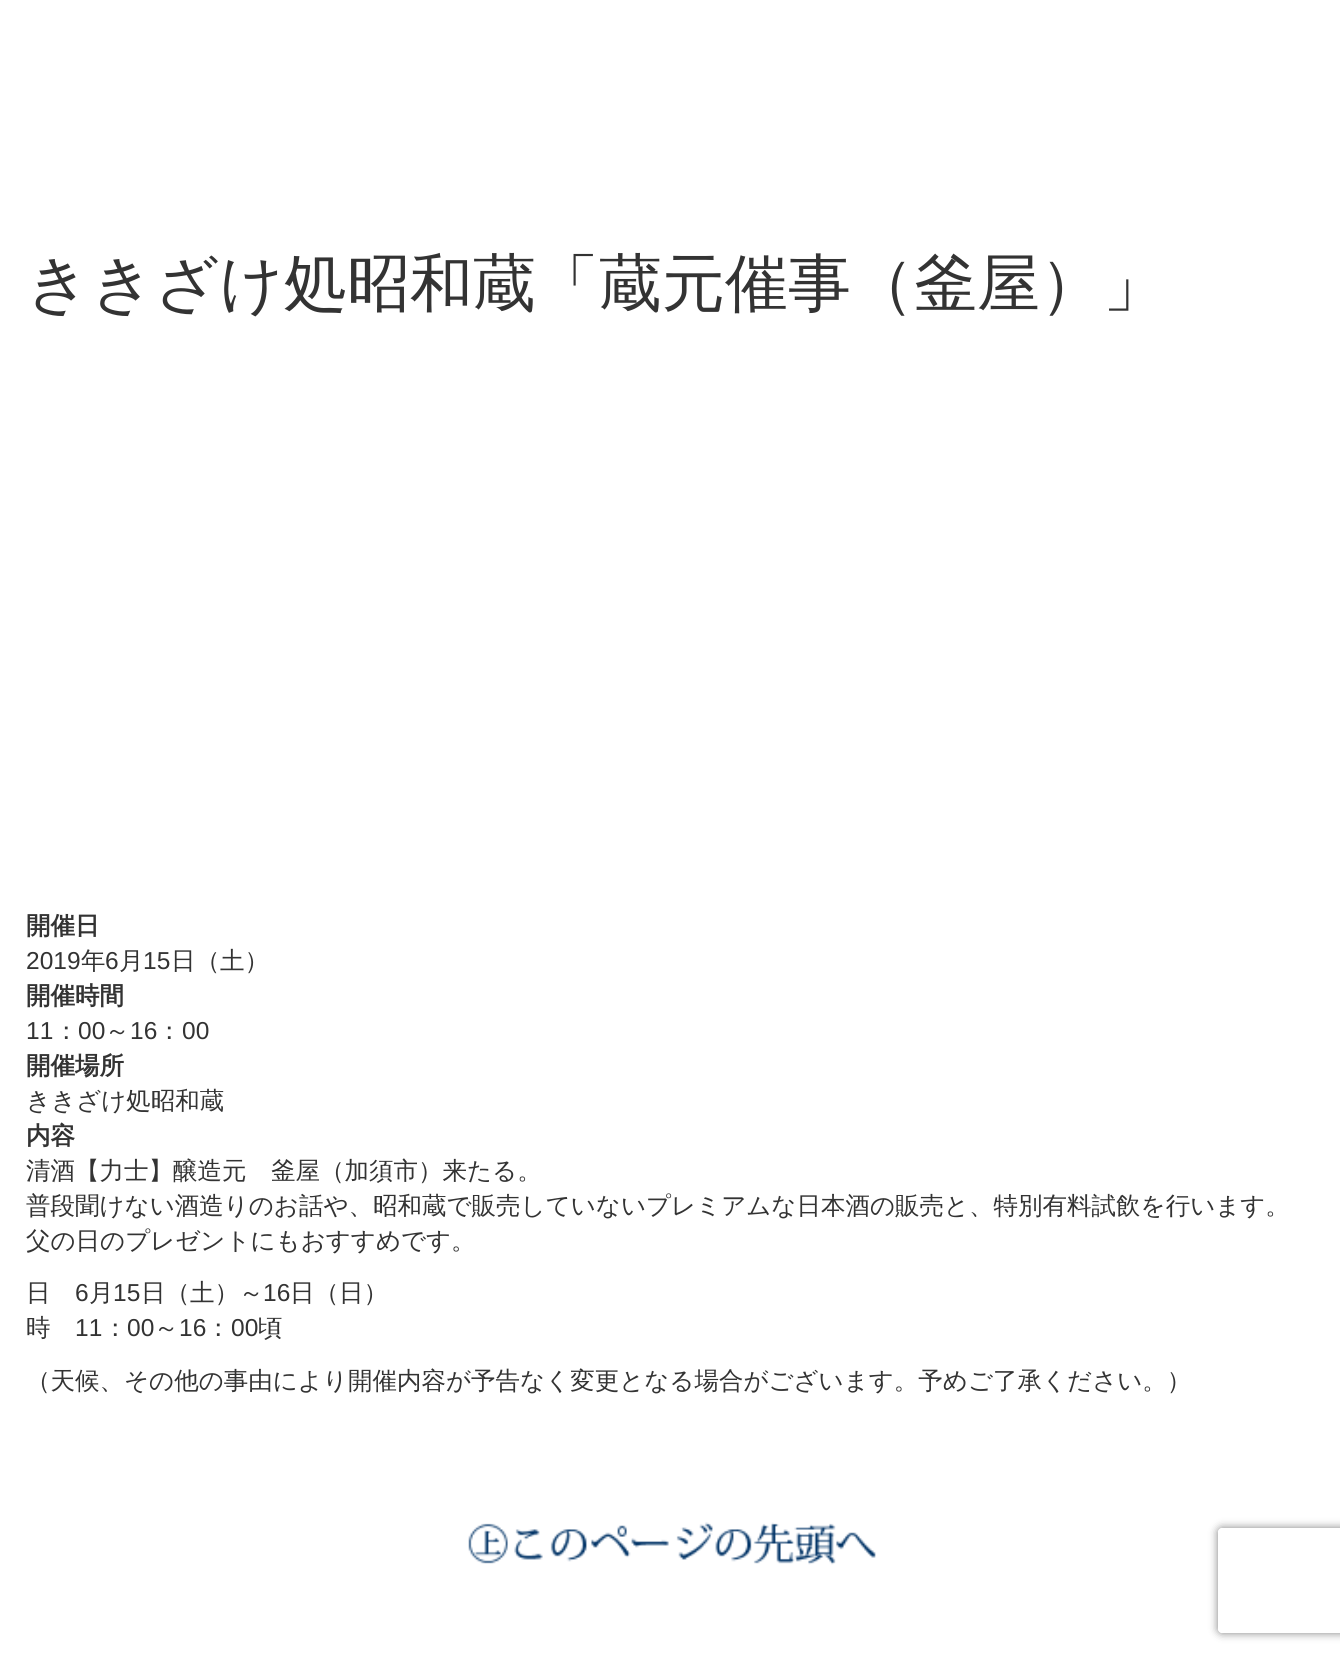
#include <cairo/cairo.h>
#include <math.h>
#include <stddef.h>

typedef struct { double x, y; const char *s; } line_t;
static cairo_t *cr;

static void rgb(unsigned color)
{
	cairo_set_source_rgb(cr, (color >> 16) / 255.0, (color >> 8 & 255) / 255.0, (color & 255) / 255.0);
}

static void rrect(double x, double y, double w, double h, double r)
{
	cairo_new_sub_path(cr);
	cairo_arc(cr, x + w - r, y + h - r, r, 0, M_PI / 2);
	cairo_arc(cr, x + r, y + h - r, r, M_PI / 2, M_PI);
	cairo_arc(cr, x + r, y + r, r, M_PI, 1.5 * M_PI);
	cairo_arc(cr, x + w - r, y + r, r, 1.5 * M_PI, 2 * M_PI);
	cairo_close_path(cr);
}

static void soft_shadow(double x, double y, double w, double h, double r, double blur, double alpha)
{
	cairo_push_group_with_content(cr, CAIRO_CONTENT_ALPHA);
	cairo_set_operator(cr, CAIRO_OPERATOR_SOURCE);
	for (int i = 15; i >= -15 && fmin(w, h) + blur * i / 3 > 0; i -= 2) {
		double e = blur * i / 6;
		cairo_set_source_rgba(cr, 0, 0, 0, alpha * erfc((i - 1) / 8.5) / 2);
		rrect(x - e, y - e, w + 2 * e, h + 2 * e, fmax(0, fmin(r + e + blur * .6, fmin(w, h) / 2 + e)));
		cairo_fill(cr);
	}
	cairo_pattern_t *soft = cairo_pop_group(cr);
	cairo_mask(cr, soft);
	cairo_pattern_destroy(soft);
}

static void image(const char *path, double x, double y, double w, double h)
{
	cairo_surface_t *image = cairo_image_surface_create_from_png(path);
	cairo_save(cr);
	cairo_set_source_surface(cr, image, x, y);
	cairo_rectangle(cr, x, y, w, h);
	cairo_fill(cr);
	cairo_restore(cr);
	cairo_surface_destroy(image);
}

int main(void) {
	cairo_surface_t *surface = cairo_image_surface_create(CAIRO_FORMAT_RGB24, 1340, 1657);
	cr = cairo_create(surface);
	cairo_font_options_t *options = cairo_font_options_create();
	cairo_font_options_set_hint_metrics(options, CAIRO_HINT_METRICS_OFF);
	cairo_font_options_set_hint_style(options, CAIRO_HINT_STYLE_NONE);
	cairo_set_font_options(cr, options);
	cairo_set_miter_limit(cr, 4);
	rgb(0xffffff);
	cairo_paint(cr);
	image("img/1.png", 468, 1522, 408, 43);
	cairo_save(cr);
	cairo_set_fill_rule(cr, CAIRO_FILL_RULE_EVEN_ODD);
	cairo_new_path(cr);
	cairo_move_to(cr, 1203, 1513);
	cairo_line_to(cr, 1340, 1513);
	cairo_line_to(cr, 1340, 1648);
	cairo_line_to(cr, 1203, 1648);
	cairo_close_path(cr);
	cairo_move_to(cr, 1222, 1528);
	cairo_line_to(cr, 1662, 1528);
	cairo_curve_to(cr, 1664, 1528, 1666, 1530, 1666, 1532);
	cairo_line_to(cr, 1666, 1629);
	cairo_curve_to(cr, 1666, 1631, 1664, 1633, 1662, 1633);
	cairo_line_to(cr, 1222, 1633);
	cairo_curve_to(cr, 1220, 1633, 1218, 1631, 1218, 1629);
	cairo_line_to(cr, 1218, 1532);
	cairo_curve_to(cr, 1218, 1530, 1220, 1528, 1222, 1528);
	cairo_close_path(cr);
	cairo_clip(cr);
	rgb(0x808080);
	soft_shadow(1218, 1528, 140, 105, 4, 4.5, 1);
	cairo_restore(cr);
	cairo_select_font_face(cr, "WenQuanYi Zen Hei Medium", CAIRO_FONT_SLANT_NORMAL, CAIRO_FONT_WEIGHT_NORMAL);
	cairo_set_font_size(cr, 63);
	rgb(0x333333);
	cairo_move_to(cr, 26, 305);
	cairo_show_text(cr, "ききざけ処昭和蔵「蔵元催事（釜屋）」");
	cairo_select_font_face(cr, "WenQuanYi Zen Hei", CAIRO_FONT_SLANT_NORMAL, CAIRO_FONT_WEIGHT_BOLD);
	cairo_set_font_size(cr, 24.5);
	cairo_move_to(cr, 26, 934);
	cairo_show_text(cr, "開催日");
	cairo_select_font_face(cr, "Liberation Sans", CAIRO_FONT_SLANT_NORMAL, CAIRO_FONT_WEIGHT_NORMAL);
	cairo_move_to(cr, 26, 969);
	cairo_show_text(cr, "2019");
	cairo_select_font_face(cr, "WenQuanYi Zen Hei Medium", CAIRO_FONT_SLANT_NORMAL, CAIRO_FONT_WEIGHT_NORMAL);
	cairo_move_to(cr, 81, 969);
	cairo_show_text(cr, "年");
	cairo_select_font_face(cr, "Liberation Sans", CAIRO_FONT_SLANT_NORMAL, CAIRO_FONT_WEIGHT_NORMAL);
	cairo_move_to(cr, 105, 969);
	cairo_show_text(cr, "6");
	cairo_select_font_face(cr, "WenQuanYi Zen Hei Medium", CAIRO_FONT_SLANT_NORMAL, CAIRO_FONT_WEIGHT_NORMAL);
	cairo_move_to(cr, 119, 969);
	cairo_show_text(cr, "月");
	cairo_select_font_face(cr, "Liberation Sans", CAIRO_FONT_SLANT_NORMAL, CAIRO_FONT_WEIGHT_NORMAL);
	cairo_move_to(cr, 143, 969);
	cairo_show_text(cr, "15");
	cairo_select_font_face(cr, "WenQuanYi Zen Hei Medium", CAIRO_FONT_SLANT_NORMAL, CAIRO_FONT_WEIGHT_NORMAL);
	cairo_move_to(cr, 171, 969);
	cairo_show_text(cr, "日（土）");
	cairo_select_font_face(cr, "WenQuanYi Zen Hei", CAIRO_FONT_SLANT_NORMAL, CAIRO_FONT_WEIGHT_BOLD);
	cairo_move_to(cr, 26, 1004);
	cairo_show_text(cr, "開催時間");
	cairo_select_font_face(cr, "Liberation Sans", CAIRO_FONT_SLANT_NORMAL, CAIRO_FONT_WEIGHT_NORMAL);
	cairo_move_to(cr, 26, 1039);
	cairo_show_text(cr, "11");
	cairo_select_font_face(cr, "WenQuanYi Zen Hei Medium", CAIRO_FONT_SLANT_NORMAL, CAIRO_FONT_WEIGHT_NORMAL);
	cairo_move_to(cr, 54, 1039);
	cairo_show_text(cr, "：");
	cairo_select_font_face(cr, "Liberation Sans", CAIRO_FONT_SLANT_NORMAL, CAIRO_FONT_WEIGHT_NORMAL);
	cairo_move_to(cr, 78, 1039);
	cairo_show_text(cr, "00");
	cairo_select_font_face(cr, "WenQuanYi Zen Hei Medium", CAIRO_FONT_SLANT_NORMAL, CAIRO_FONT_WEIGHT_NORMAL);
	cairo_move_to(cr, 105, 1039);
	cairo_show_text(cr, "～");
	cairo_select_font_face(cr, "Liberation Sans", CAIRO_FONT_SLANT_NORMAL, CAIRO_FONT_WEIGHT_NORMAL);
	cairo_move_to(cr, 130, 1039);
	cairo_show_text(cr, "16");
	cairo_select_font_face(cr, "WenQuanYi Zen Hei Medium", CAIRO_FONT_SLANT_NORMAL, CAIRO_FONT_WEIGHT_NORMAL);
	cairo_move_to(cr, 157, 1039);
	cairo_show_text(cr, "：");
	cairo_select_font_face(cr, "Liberation Sans", CAIRO_FONT_SLANT_NORMAL, CAIRO_FONT_WEIGHT_NORMAL);
	cairo_move_to(cr, 182, 1039);
	cairo_show_text(cr, "00");
	cairo_select_font_face(cr, "WenQuanYi Zen Hei", CAIRO_FONT_SLANT_NORMAL, CAIRO_FONT_WEIGHT_BOLD);
	cairo_move_to(cr, 26, 1074);
	cairo_show_text(cr, "開催場所");
	cairo_select_font_face(cr, "WenQuanYi Zen Hei Medium", CAIRO_FONT_SLANT_NORMAL, CAIRO_FONT_WEIGHT_NORMAL);
	cairo_move_to(cr, 26, 1109);
	cairo_show_text(cr, "ききざけ処昭和蔵");
	cairo_select_font_face(cr, "WenQuanYi Zen Hei", CAIRO_FONT_SLANT_NORMAL, CAIRO_FONT_WEIGHT_BOLD);
	cairo_move_to(cr, 26, 1144);
	cairo_show_text(cr, "内容");
	cairo_select_font_face(cr, "WenQuanYi Zen Hei Medium", CAIRO_FONT_SLANT_NORMAL, CAIRO_FONT_WEIGHT_NORMAL);
	{
		static const line_t items[] = {
			{26, 1179, "清酒【力士】醸造元　釜屋（加須市）来たる。"},
			{26, 1214, "普段聞けない酒造りのお話や、昭和蔵で販売していないプレミアムな日本酒の販売と、特別有料試飲を行います。"},
			{26, 1249, "父の日のプレゼントにもおすすめです。"},
			{26, 1301, "日"},
		};
		for (size_t i = 0; i < sizeof items / sizeof *items; i++) {
			cairo_move_to(cr, items[i].x, items[i].y);
			cairo_show_text(cr, items[i].s);
		}
	}
	cairo_select_font_face(cr, "Liberation Sans", CAIRO_FONT_SLANT_NORMAL, CAIRO_FONT_WEIGHT_NORMAL);
	cairo_move_to(cr, 75, 1301);
	cairo_show_text(cr, "6");
	cairo_select_font_face(cr, "WenQuanYi Zen Hei Medium", CAIRO_FONT_SLANT_NORMAL, CAIRO_FONT_WEIGHT_NORMAL);
	cairo_move_to(cr, 89, 1301);
	cairo_show_text(cr, "月");
	cairo_select_font_face(cr, "Liberation Sans", CAIRO_FONT_SLANT_NORMAL, CAIRO_FONT_WEIGHT_NORMAL);
	cairo_move_to(cr, 113, 1301);
	cairo_show_text(cr, "15");
	cairo_select_font_face(cr, "WenQuanYi Zen Hei Medium", CAIRO_FONT_SLANT_NORMAL, CAIRO_FONT_WEIGHT_NORMAL);
	cairo_move_to(cr, 141, 1301);
	cairo_show_text(cr, "日（土）～");
	cairo_select_font_face(cr, "Liberation Sans", CAIRO_FONT_SLANT_NORMAL, CAIRO_FONT_WEIGHT_NORMAL);
	cairo_move_to(cr, 263, 1301);
	cairo_show_text(cr, "16");
	cairo_select_font_face(cr, "WenQuanYi Zen Hei Medium", CAIRO_FONT_SLANT_NORMAL, CAIRO_FONT_WEIGHT_NORMAL);
	cairo_move_to(cr, 290, 1301);
	cairo_show_text(cr, "日（日）");
	cairo_move_to(cr, 26, 1336);
	cairo_show_text(cr, "時");
	cairo_select_font_face(cr, "Liberation Sans", CAIRO_FONT_SLANT_NORMAL, CAIRO_FONT_WEIGHT_NORMAL);
	cairo_move_to(cr, 75, 1336);
	cairo_show_text(cr, "11");
	cairo_select_font_face(cr, "WenQuanYi Zen Hei Medium", CAIRO_FONT_SLANT_NORMAL, CAIRO_FONT_WEIGHT_NORMAL);
	cairo_move_to(cr, 103, 1336);
	cairo_show_text(cr, "：");
	cairo_select_font_face(cr, "Liberation Sans", CAIRO_FONT_SLANT_NORMAL, CAIRO_FONT_WEIGHT_NORMAL);
	cairo_move_to(cr, 127, 1336);
	cairo_show_text(cr, "00");
	cairo_select_font_face(cr, "WenQuanYi Zen Hei Medium", CAIRO_FONT_SLANT_NORMAL, CAIRO_FONT_WEIGHT_NORMAL);
	cairo_move_to(cr, 154, 1336);
	cairo_show_text(cr, "～");
	cairo_select_font_face(cr, "Liberation Sans", CAIRO_FONT_SLANT_NORMAL, CAIRO_FONT_WEIGHT_NORMAL);
	cairo_move_to(cr, 179, 1336);
	cairo_show_text(cr, "16");
	cairo_select_font_face(cr, "WenQuanYi Zen Hei Medium", CAIRO_FONT_SLANT_NORMAL, CAIRO_FONT_WEIGHT_NORMAL);
	cairo_move_to(cr, 206, 1336);
	cairo_show_text(cr, "：");
	cairo_select_font_face(cr, "Liberation Sans", CAIRO_FONT_SLANT_NORMAL, CAIRO_FONT_WEIGHT_NORMAL);
	cairo_move_to(cr, 231, 1336);
	cairo_show_text(cr, "00");
	cairo_select_font_face(cr, "WenQuanYi Zen Hei Medium", CAIRO_FONT_SLANT_NORMAL, CAIRO_FONT_WEIGHT_NORMAL);
	cairo_move_to(cr, 258, 1336);
	cairo_show_text(cr, "頃");
	cairo_move_to(cr, 26, 1389);
	cairo_show_text(cr, "（天候、その他の事由により開催内容が予告なく変更となる場合がございます。予めご了承ください。）");
	cairo_surface_write_to_png(surface, "page.png");
	cairo_font_options_destroy(options);
	cairo_destroy(cr);
	cairo_surface_destroy(surface);
	return 0;
}
